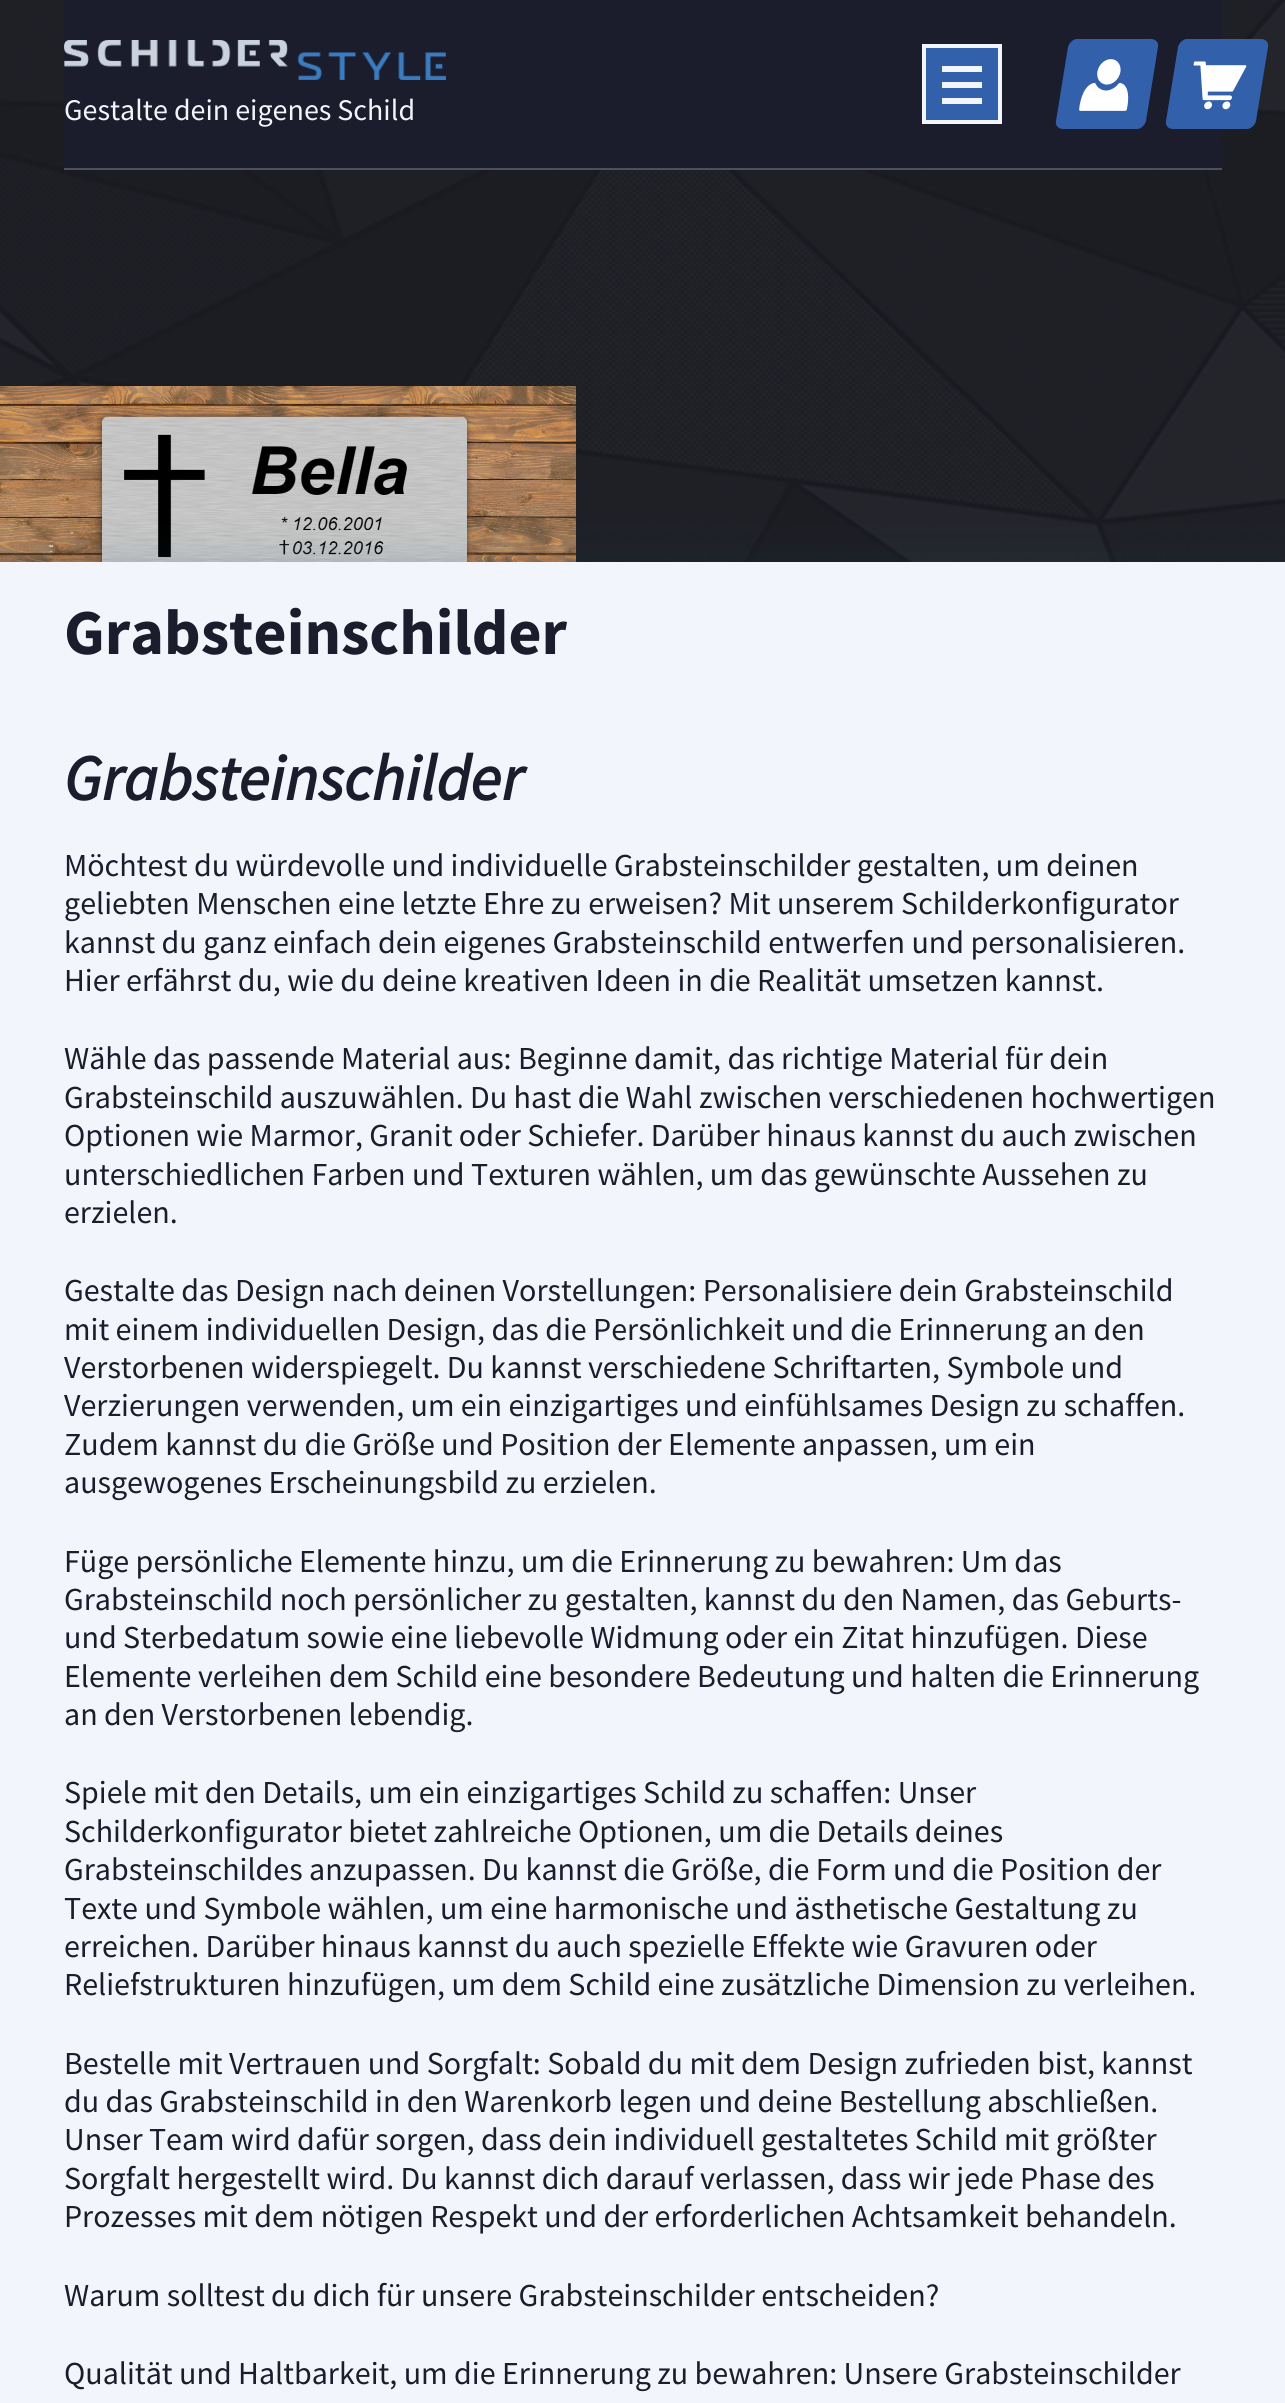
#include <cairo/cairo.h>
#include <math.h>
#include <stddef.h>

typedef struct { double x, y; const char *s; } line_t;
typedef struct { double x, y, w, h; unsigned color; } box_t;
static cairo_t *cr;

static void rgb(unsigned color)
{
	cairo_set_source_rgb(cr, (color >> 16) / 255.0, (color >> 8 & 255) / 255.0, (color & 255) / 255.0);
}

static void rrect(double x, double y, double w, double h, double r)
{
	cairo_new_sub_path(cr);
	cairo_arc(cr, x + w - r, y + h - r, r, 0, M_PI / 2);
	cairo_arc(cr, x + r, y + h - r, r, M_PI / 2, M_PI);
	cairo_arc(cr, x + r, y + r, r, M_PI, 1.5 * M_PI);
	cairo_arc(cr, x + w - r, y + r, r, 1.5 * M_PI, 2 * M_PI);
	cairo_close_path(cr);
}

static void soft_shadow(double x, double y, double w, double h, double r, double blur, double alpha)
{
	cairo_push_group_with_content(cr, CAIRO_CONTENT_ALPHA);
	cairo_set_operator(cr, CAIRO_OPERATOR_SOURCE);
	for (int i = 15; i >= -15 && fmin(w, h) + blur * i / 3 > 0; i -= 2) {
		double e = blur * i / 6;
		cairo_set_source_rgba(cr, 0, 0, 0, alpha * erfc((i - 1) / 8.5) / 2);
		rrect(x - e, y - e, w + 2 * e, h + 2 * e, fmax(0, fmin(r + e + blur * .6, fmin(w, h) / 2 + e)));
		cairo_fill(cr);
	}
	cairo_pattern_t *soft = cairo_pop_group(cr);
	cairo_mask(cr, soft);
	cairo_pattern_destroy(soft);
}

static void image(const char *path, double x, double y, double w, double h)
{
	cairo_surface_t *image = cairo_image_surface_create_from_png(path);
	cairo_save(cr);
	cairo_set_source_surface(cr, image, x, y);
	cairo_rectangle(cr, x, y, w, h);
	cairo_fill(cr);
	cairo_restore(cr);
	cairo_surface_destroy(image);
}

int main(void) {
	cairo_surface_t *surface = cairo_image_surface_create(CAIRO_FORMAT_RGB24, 1285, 2403);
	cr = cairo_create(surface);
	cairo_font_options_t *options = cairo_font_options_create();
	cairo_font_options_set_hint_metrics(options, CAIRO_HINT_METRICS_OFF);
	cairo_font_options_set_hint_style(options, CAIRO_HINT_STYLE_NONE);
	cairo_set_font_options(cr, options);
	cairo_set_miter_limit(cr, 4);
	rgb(0xffffff);
	cairo_paint(cr);
	image("img/1.png", 0, 0, 1285, 562);
	rgb(0x1b1c2c);
	cairo_rectangle(cr, 64, 0, 1158, 168);
	cairo_fill(cr);
	rgb(0x4c515d);
	cairo_rectangle(cr, 64, 168, 1158, 2);
	cairo_fill(cr);
	image("img/2.png", 64, 40, 382, 40);
	rgb(0x3260ab);
	cairo_rectangle(cr, 924, 46, 76, 76);
	cairo_fill_preserve(cr);
	rgb(0xf2f5fc);
	cairo_set_line_width(cr, 4);
	cairo_stroke(cr);
	{
		static const box_t items[] = {
			{942, 66, 40, 6, 0xf2f5fc},
			{942, 82, 40, 6, 0xf2f5fc},
			{942, 98, 40, 6, 0xf2f5fc},
		};
		for (size_t i = 0; i < sizeof items / sizeof *items; i++) {
			rgb(items[i].color);
			cairo_rectangle(cr, items[i].x, items[i].y, items[i].w, items[i].h);
			cairo_fill(cr);
		}
	}
	rgb(0x3260ab);
	cairo_new_path(cr);
	cairo_move_to(cr, 1077, 39);
	cairo_line_to(cr, 1151, 39);
	cairo_curve_to(cr, 1156, 39, 1159, 43, 1158, 47);
	cairo_line_to(cr, 1146, 121);
	cairo_curve_to(cr, 1145, 125, 1141, 129, 1137, 129);
	cairo_line_to(cr, 1063, 129);
	cairo_curve_to(cr, 1058, 129, 1055, 125, 1056, 121);
	cairo_line_to(cr, 1068, 47);
	cairo_curve_to(cr, 1069, 43, 1073, 39, 1077, 39);
	cairo_close_path(cr);
	cairo_fill(cr);
	image("img/3.png", 1079, 59, 50, 52);
	cairo_new_path(cr);
	cairo_move_to(cr, 1187, 39);
	cairo_line_to(cr, 1261, 39);
	cairo_curve_to(cr, 1266, 39, 1269, 43, 1268, 47);
	cairo_line_to(cr, 1256, 121);
	cairo_curve_to(cr, 1255, 125, 1251, 129, 1247, 129);
	cairo_line_to(cr, 1173, 129);
	cairo_curve_to(cr, 1168, 129, 1165, 125, 1166, 121);
	cairo_line_to(cr, 1178, 47);
	cairo_curve_to(cr, 1179, 43, 1183, 39, 1187, 39);
	cairo_close_path(cr);
	cairo_fill(cr);
	image("img/4.png", 1193, 61, 54, 49);
	image("img/5.png", 0, 386, 576, 176);
	rgb(0x214462);
	soft_shadow(0, 562, 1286, 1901, 0, 20, 0.19);
	rgb(0xf2f5fc);
	cairo_rectangle(cr, 0, 562, 1285, 1841);
	cairo_fill(cr);
	cairo_select_font_face(cr, "Source Sans Pro", CAIRO_FONT_SLANT_NORMAL, CAIRO_FONT_WEIGHT_NORMAL);
	cairo_set_font_size(cr, 30);
	cairo_move_to(cr, 64, 120);
	cairo_show_text(cr, "Gestalte dein eigenes Schild");
	cairo_select_font_face(cr, "Source Sans Pro", CAIRO_FONT_SLANT_NORMAL, CAIRO_FONT_WEIGHT_BOLD);
	cairo_set_font_size(cr, 64);
	rgb(0x1b1c2c);
	cairo_move_to(cr, 64, 654);
	cairo_show_text(cr, "Grabsteinschilder");
	cairo_select_font_face(cr, "Source Sans Pro", CAIRO_FONT_SLANT_ITALIC, CAIRO_FONT_WEIGHT_BOLD);
	cairo_move_to(cr, 64, 800);
	cairo_show_text(cr, "Grabsteinschilder");
	cairo_select_font_face(cr, "Source Sans Pro", CAIRO_FONT_SLANT_NORMAL, CAIRO_FONT_WEIGHT_NORMAL);
	cairo_set_font_size(cr, 32);
	{
		static const line_t items[] = {
			{64, 876, "Möchtest du würdevolle und individuelle Grabsteinschilder gestalten, um deinen"},
			{64, 914, "geliebten Menschen eine letzte Ehre zu erweisen? Mit unserem Schilderkonfigurator"},
			{64, 953, "kannst du ganz einfach dein eigenes Grabsteinschild entwerfen und personalisieren."},
			{64, 991, "Hier erfährst du, wie du deine kreativen Ideen in die Realität umsetzen kannst."},
			{64, 1069, "Wähle das passende Material aus: Beginne damit, das richtige Material für dein"},
			{64, 1108, "Grabsteinschild auszuwählen. Du hast die Wahl zwischen verschiedenen hochwertigen"},
			{64, 1146, "Optionen wie Marmor, Granit oder Schiefer. Darüber hinaus kannst du auch zwischen"},
			{64, 1185, "unterschiedlichen Farben und Texturen wählen, um das gewünschte Aussehen zu"},
			{64, 1223, "erzielen."},
			{64, 1301, "Gestalte das Design nach deinen Vorstellungen: Personalisiere dein Grabsteinschild"},
			{64, 1340, "mit einem individuellen Design, das die Persönlichkeit und die Erinnerung an den"},
			{64, 1378, "Verstorbenen widerspiegelt. Du kannst verschiedene Schriftarten, Symbole und"},
			{64, 1416, "Verzierungen verwenden, um ein einzigartiges und einfühlsames Design zu schaffen."},
			{64, 1455, "Zudem kannst du die Größe und Position der Elemente anpassen, um ein"},
			{64, 1493, "ausgewogenes Erscheinungsbild zu erzielen."},
			{64, 1572, "Füge persönliche Elemente hinzu, um die Erinnerung zu bewahren: Um das"},
			{64, 1610, "Grabsteinschild noch persönlicher zu gestalten, kannst du den Namen, das Geburts-"},
			{64, 1648, "und Sterbedatum sowie eine liebevolle Widmung oder ein Zitat hinzufügen. Diese"},
			{64, 1687, "Elemente verleihen dem Schild eine besondere Bedeutung und halten die Erinnerung"},
			{64, 1725, "an den Verstorbenen lebendig."},
			{64, 1803, "Spiele mit den Details, um ein einzigartiges Schild zu schaffen: Unser"},
			{64, 1842, "Schilderkonfigurator bietet zahlreiche Optionen, um die Details deines"},
			{64, 1880, "Grabsteinschildes anzupassen. Du kannst die Größe, die Form und die Position der"},
			{64, 1919, "Texte und Symbole wählen, um eine harmonische und ästhetische Gestaltung zu"},
			{64, 1957, "erreichen. Darüber hinaus kannst du auch spezielle Effekte wie Gravuren oder"},
			{64, 1995, "Reliefstrukturen hinzufügen, um dem Schild eine zusätzliche Dimension zu verleihen."},
			{64, 2074, "Bestelle mit Vertrauen und Sorgfalt: Sobald du mit dem Design zufrieden bist, kannst"},
			{64, 2112, "du das Grabsteinschild in den Warenkorb legen und deine Bestellung abschließen."},
			{64, 2150, "Unser Team wird dafür sorgen, dass dein individuell gestaltetes Schild mit größter"},
			{64, 2189, "Sorgfalt hergestellt wird. Du kannst dich darauf verlassen, dass wir jede Phase des"},
			{64, 2227, "Prozesses mit dem nötigen Respekt und der erforderlichen Achtsamkeit behandeln."},
			{64, 2306, "Warum solltest du dich für unsere Grabsteinschilder entscheiden?"},
			{64, 2384, "Qualität und Haltbarkeit, um die Erinnerung zu bewahren: Unsere Grabsteinschilder"},
		};
		for (size_t i = 0; i < sizeof items / sizeof *items; i++) {
			cairo_move_to(cr, items[i].x, items[i].y);
			cairo_show_text(cr, items[i].s);
		}
	}
	cairo_surface_write_to_png(surface, "page.png");
	cairo_font_options_destroy(options);
	cairo_destroy(cr);
	cairo_surface_destroy(surface);
	return 0;
}
